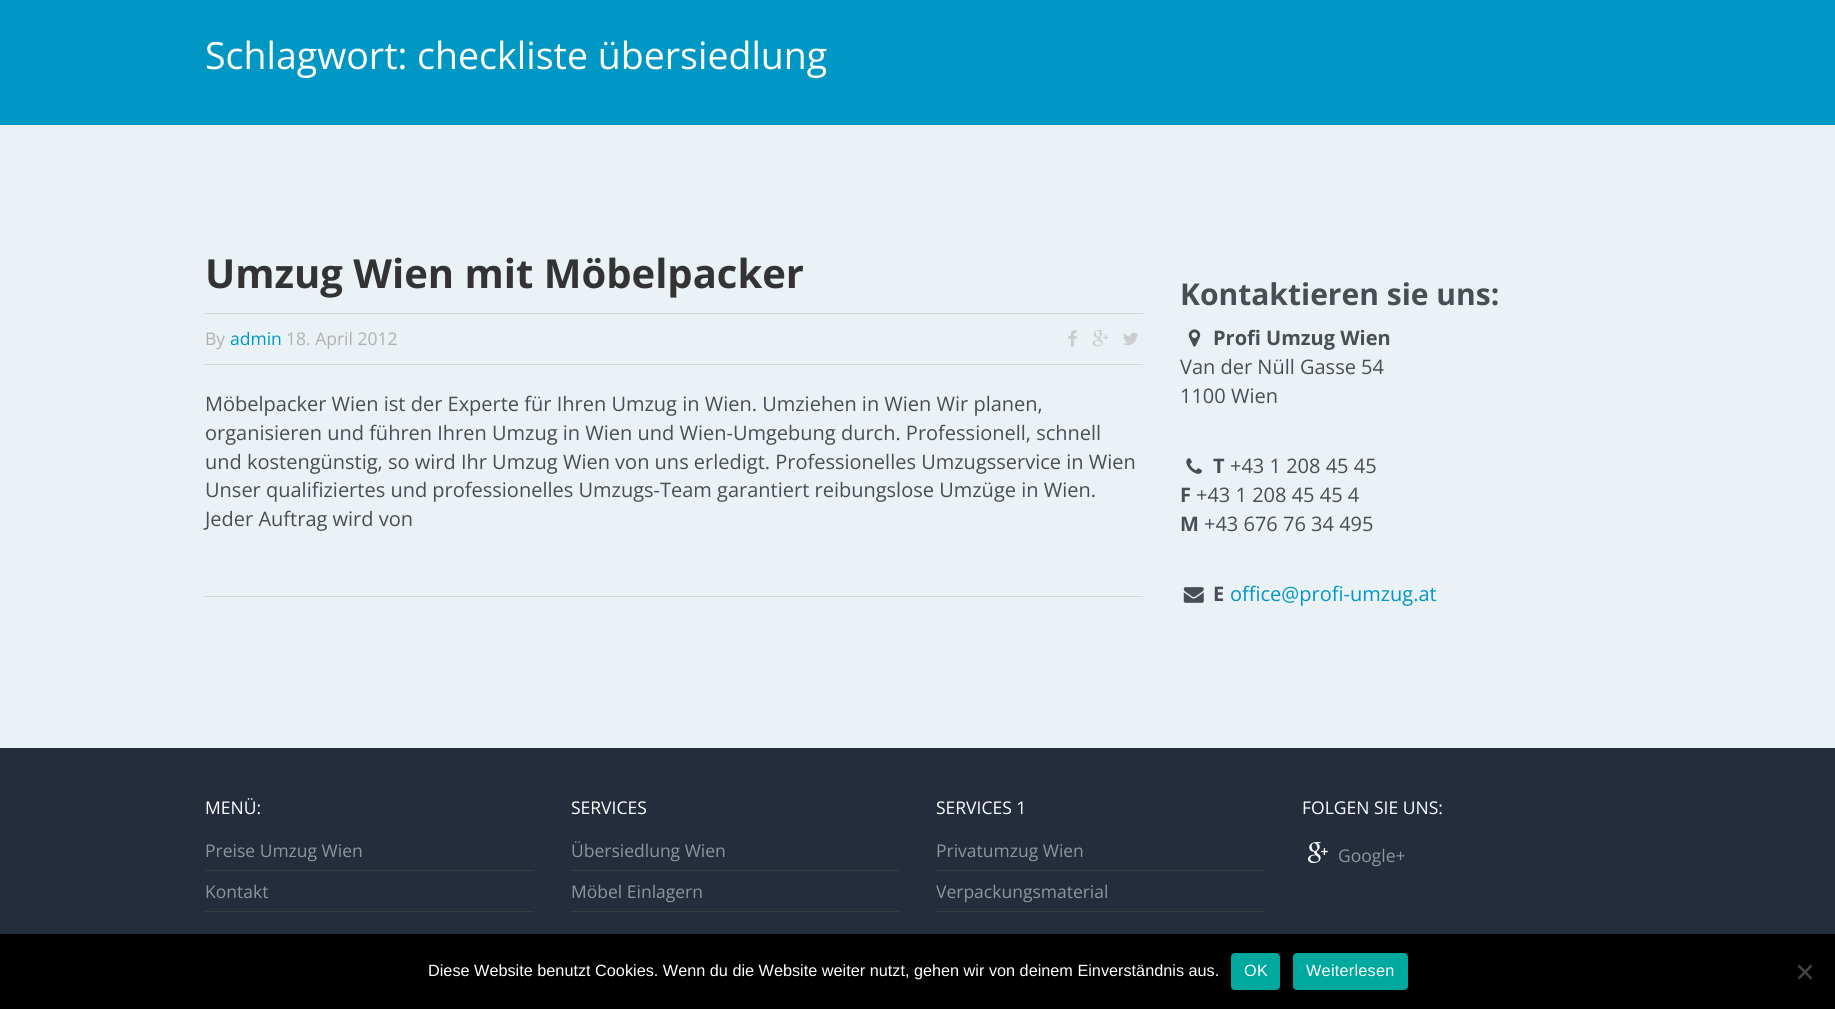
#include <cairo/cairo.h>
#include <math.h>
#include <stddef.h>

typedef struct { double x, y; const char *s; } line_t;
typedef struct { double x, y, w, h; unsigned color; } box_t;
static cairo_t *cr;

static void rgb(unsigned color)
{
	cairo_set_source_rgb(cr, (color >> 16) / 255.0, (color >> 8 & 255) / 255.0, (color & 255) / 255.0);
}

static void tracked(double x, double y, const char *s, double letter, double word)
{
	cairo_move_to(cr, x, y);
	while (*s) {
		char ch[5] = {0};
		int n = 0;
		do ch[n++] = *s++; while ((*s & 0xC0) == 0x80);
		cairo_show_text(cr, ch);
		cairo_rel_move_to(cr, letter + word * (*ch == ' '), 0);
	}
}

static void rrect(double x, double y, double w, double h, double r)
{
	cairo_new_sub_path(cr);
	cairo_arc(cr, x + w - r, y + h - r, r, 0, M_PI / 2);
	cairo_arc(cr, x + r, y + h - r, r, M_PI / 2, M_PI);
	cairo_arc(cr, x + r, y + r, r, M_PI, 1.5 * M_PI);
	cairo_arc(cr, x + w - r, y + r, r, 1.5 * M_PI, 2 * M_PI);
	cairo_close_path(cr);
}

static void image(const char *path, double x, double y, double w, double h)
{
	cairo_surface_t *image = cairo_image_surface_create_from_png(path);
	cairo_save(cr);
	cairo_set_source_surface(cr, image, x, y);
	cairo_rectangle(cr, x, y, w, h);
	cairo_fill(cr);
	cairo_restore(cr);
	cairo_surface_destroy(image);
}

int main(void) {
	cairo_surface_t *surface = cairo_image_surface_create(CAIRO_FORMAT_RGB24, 1835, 1009);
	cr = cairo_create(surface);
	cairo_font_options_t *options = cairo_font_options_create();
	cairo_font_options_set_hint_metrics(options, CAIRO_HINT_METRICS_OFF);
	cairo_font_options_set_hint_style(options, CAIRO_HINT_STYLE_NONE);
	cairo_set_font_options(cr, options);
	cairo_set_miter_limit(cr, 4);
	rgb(0x0097c4);
	cairo_paint(cr);
	{
		static const box_t items[] = {
			{0, 125, 1835, 623, 0xeaf2f5},
			{205, 313, 938, 1, 0xd6d6d6},
			{205, 364, 938, 1, 0xd6d6d6},
		};
		for (size_t i = 0; i < sizeof items / sizeof *items; i++) {
			rgb(items[i].color);
			cairo_rectangle(cr, items[i].x, items[i].y, items[i].w, items[i].h);
			cairo_fill(cr);
		}
	}
	image("img/1.png", 1068, 330, 9, 17);
	image("img/2.png", 1092, 330, 17, 17);
	image("img/3.png", 1123, 332, 15, 14);
	cairo_rectangle(cr, 205, 596, 938, 1);
	cairo_fill(cr);
	image("img/4.png", 1188, 329, 13, 18);
	image("img/5.png", 1186, 458, 16, 16);
	image("img/6.png", 1183, 587, 21, 16);
	{
		static const box_t items[] = {
			{0, 748, 1835, 186, 0x232d3b},
			{205, 870, 329, 1, 0x383c40},
			{205, 911, 329, 1, 0x383c40},
			{571, 870, 328, 1, 0x383c40},
			{571, 911, 328, 1, 0x383c40},
			{936, 870, 329, 1, 0x383c40},
			{936, 911, 329, 1, 0x383c40},
		};
		for (size_t i = 0; i < sizeof items / sizeof *items; i++) {
			rgb(items[i].color);
			cairo_rectangle(cr, items[i].x, items[i].y, items[i].w, items[i].h);
			cairo_fill(cr);
		}
	}
	image("img/7.png", 1307, 842, 21, 21);
	rgb(0x000000);
	cairo_rectangle(cr, 0, 934, 1835, 75);
	cairo_fill(cr);
	rgb(0x00a99d);
	rrect(1231, 953, 49, 37, 4);
	cairo_fill(cr);
	rrect(1293, 953, 115, 37, 4);
	cairo_fill(cr);
	rgb(0x404040);
	cairo_new_path(cr);
	cairo_move_to(cr, 1810.5, 964.5);
	cairo_line_to(cr, 1812.5, 966.5);
	cairo_line_to(cr, 1799.5, 979.5);
	cairo_line_to(cr, 1797.5, 978);
	cairo_close_path(cr);
	cairo_fill(cr);
	cairo_new_path(cr);
	cairo_move_to(cr, 1797.5, 966.5);
	cairo_line_to(cr, 1799.5, 964.5);
	cairo_line_to(cr, 1812.5, 978);
	cairo_line_to(cr, 1810.5, 979.5);
	cairo_close_path(cr);
	cairo_fill(cr);
	cairo_select_font_face(cr, "Open Sans", CAIRO_FONT_SLANT_NORMAL, CAIRO_FONT_WEIGHT_NORMAL);
	cairo_set_font_size(cr, 37.5);
	rgb(0xffffff);
	cairo_move_to(cr, 205, 69);
	cairo_show_text(cr, "Schlagwort: checkliste übersiedlung");
	cairo_select_font_face(cr, "Open Sans", CAIRO_FONT_SLANT_NORMAL, CAIRO_FONT_WEIGHT_BOLD);
	cairo_set_font_size(cr, 40);
	rgb(0x333333);
	cairo_move_to(cr, 205, 288);
	cairo_show_text(cr, "Umzug Wien mit Möbelpacker");
	cairo_select_font_face(cr, "Open Sans", CAIRO_FONT_SLANT_NORMAL, CAIRO_FONT_WEIGHT_NORMAL);
	cairo_set_font_size(cr, 17.5);
	rgb(0xb0b0b0);
	cairo_move_to(cr, 205, 345);
	cairo_show_text(cr, "By");
	rgb(0x0097c4);
	cairo_move_to(cr, 230, 345);
	cairo_show_text(cr, "admin");
	rgb(0xb0b0b0);
	cairo_move_to(cr, 286, 345);
	cairo_show_text(cr, "18. April 2012");
	cairo_set_font_size(cr, 20);
	rgb(0x484e53);
	{
		static const line_t items[] = {
			{205, 411, "Möbelpacker Wien ist der Experte für Ihren Umzug in Wien. Umziehen in Wien Wir planen,"},
			{205, 440, "organisieren und führen Ihren Umzug in Wien und Wien-Umgebung durch. Professionell, schnell"},
			{205, 469, "und kostengünstig, so wird Ihr Umzug Wien von uns erledigt. Professionelles Umzugsservice in Wien"},
			{205, 497, "Unser qualifiziertes und professionelles Umzugs-Team garantiert reibungslose Umzüge in Wien."},
			{205, 526, "Jeder Auftrag wird von"},
		};
		for (size_t i = 0; i < sizeof items / sizeof *items; i++) {
			cairo_move_to(cr, items[i].x, items[i].y);
			cairo_show_text(cr, items[i].s);
		}
	}
	cairo_select_font_face(cr, "Open Sans", CAIRO_FONT_SLANT_NORMAL, CAIRO_FONT_WEIGHT_BOLD);
	cairo_set_font_size(cr, 30);
	cairo_move_to(cr, 1180, 305);
	cairo_show_text(cr, "Kontaktieren sie uns:");
	cairo_set_font_size(cr, 20);
	cairo_move_to(cr, 1213, 345);
	cairo_show_text(cr, "Profi Umzug Wien");
	cairo_select_font_face(cr, "Open Sans", CAIRO_FONT_SLANT_NORMAL, CAIRO_FONT_WEIGHT_NORMAL);
	cairo_move_to(cr, 1180, 374);
	cairo_show_text(cr, "Van der Nüll Gasse 54");
	cairo_move_to(cr, 1180, 403);
	cairo_show_text(cr, "1100 Wien");
	cairo_select_font_face(cr, "Open Sans", CAIRO_FONT_SLANT_NORMAL, CAIRO_FONT_WEIGHT_BOLD);
	cairo_move_to(cr, 1213, 473);
	cairo_show_text(cr, "T");
	cairo_select_font_face(cr, "Open Sans", CAIRO_FONT_SLANT_NORMAL, CAIRO_FONT_WEIGHT_NORMAL);
	cairo_move_to(cr, 1230, 473);
	cairo_show_text(cr, "+43 1 208 45 45");
	cairo_select_font_face(cr, "Open Sans", CAIRO_FONT_SLANT_NORMAL, CAIRO_FONT_WEIGHT_BOLD);
	cairo_move_to(cr, 1180, 502);
	cairo_show_text(cr, "F");
	cairo_select_font_face(cr, "Open Sans", CAIRO_FONT_SLANT_NORMAL, CAIRO_FONT_WEIGHT_NORMAL);
	cairo_move_to(cr, 1196, 502);
	cairo_show_text(cr, "+43 1 208 45 45 4");
	cairo_select_font_face(cr, "Open Sans", CAIRO_FONT_SLANT_NORMAL, CAIRO_FONT_WEIGHT_BOLD);
	cairo_move_to(cr, 1180, 531);
	cairo_show_text(cr, "M");
	cairo_select_font_face(cr, "Open Sans", CAIRO_FONT_SLANT_NORMAL, CAIRO_FONT_WEIGHT_NORMAL);
	cairo_move_to(cr, 1204, 531);
	cairo_show_text(cr, "+43 676 76 34 495");
	cairo_select_font_face(cr, "Open Sans", CAIRO_FONT_SLANT_NORMAL, CAIRO_FONT_WEIGHT_BOLD);
	cairo_move_to(cr, 1213, 601);
	cairo_show_text(cr, "E");
	cairo_select_font_face(cr, "Open Sans", CAIRO_FONT_SLANT_NORMAL, CAIRO_FONT_WEIGHT_NORMAL);
	rgb(0x0097c4);
	cairo_move_to(cr, 1230, 601);
	cairo_show_text(cr, "office@profi-umzug.at");
	cairo_set_font_size(cr, 17.5);
	rgb(0xffffff);
	cairo_move_to(cr, 205, 814);
	cairo_show_text(cr, "MENÜ:");
	rgb(0x8e959c);
	cairo_move_to(cr, 205, 857);
	cairo_show_text(cr, "Preise Umzug Wien");
	cairo_move_to(cr, 205, 898);
	cairo_show_text(cr, "Kontakt");
	rgb(0xffffff);
	cairo_move_to(cr, 571, 814);
	cairo_show_text(cr, "SERVICES");
	rgb(0x8e959c);
	cairo_move_to(cr, 571, 857);
	cairo_show_text(cr, "Übersiedlung Wien");
	cairo_move_to(cr, 571, 898);
	cairo_show_text(cr, "Möbel Einlagern");
	rgb(0xffffff);
	cairo_move_to(cr, 936, 814);
	cairo_show_text(cr, "SERVICES 1");
	rgb(0x8e959c);
	cairo_move_to(cr, 936, 857);
	cairo_show_text(cr, "Privatumzug Wien");
	cairo_move_to(cr, 936, 898);
	cairo_show_text(cr, "Verpackungsmaterial");
	rgb(0xffffff);
	cairo_move_to(cr, 1302, 814);
	cairo_show_text(cr, "FOLGEN SIE UNS:");
	rgb(0x8e959c);
	cairo_move_to(cr, 1338, 862);
	cairo_show_text(cr, "Google+");
	cairo_select_font_face(cr, "Liberation Sans", CAIRO_FONT_SLANT_NORMAL, CAIRO_FONT_WEIGHT_NORMAL);
	cairo_set_font_size(cr, 16.25);
	rgb(0xffffff);
	cairo_move_to(cr, 428, 976);
	cairo_show_text(cr, "Diese Website benutzt Cookies. Wenn du die Website weiter nutzt, gehen wir von deinem Einverständnis aus.");
	tracked(1244, 976, "OK", 0.25, 0);
	tracked(1306, 976, "Weiterlesen", 0.25, 0);
	cairo_surface_write_to_png(surface, "page.png");
	cairo_font_options_destroy(options);
	cairo_destroy(cr);
	cairo_surface_destroy(surface);
	return 0;
}
